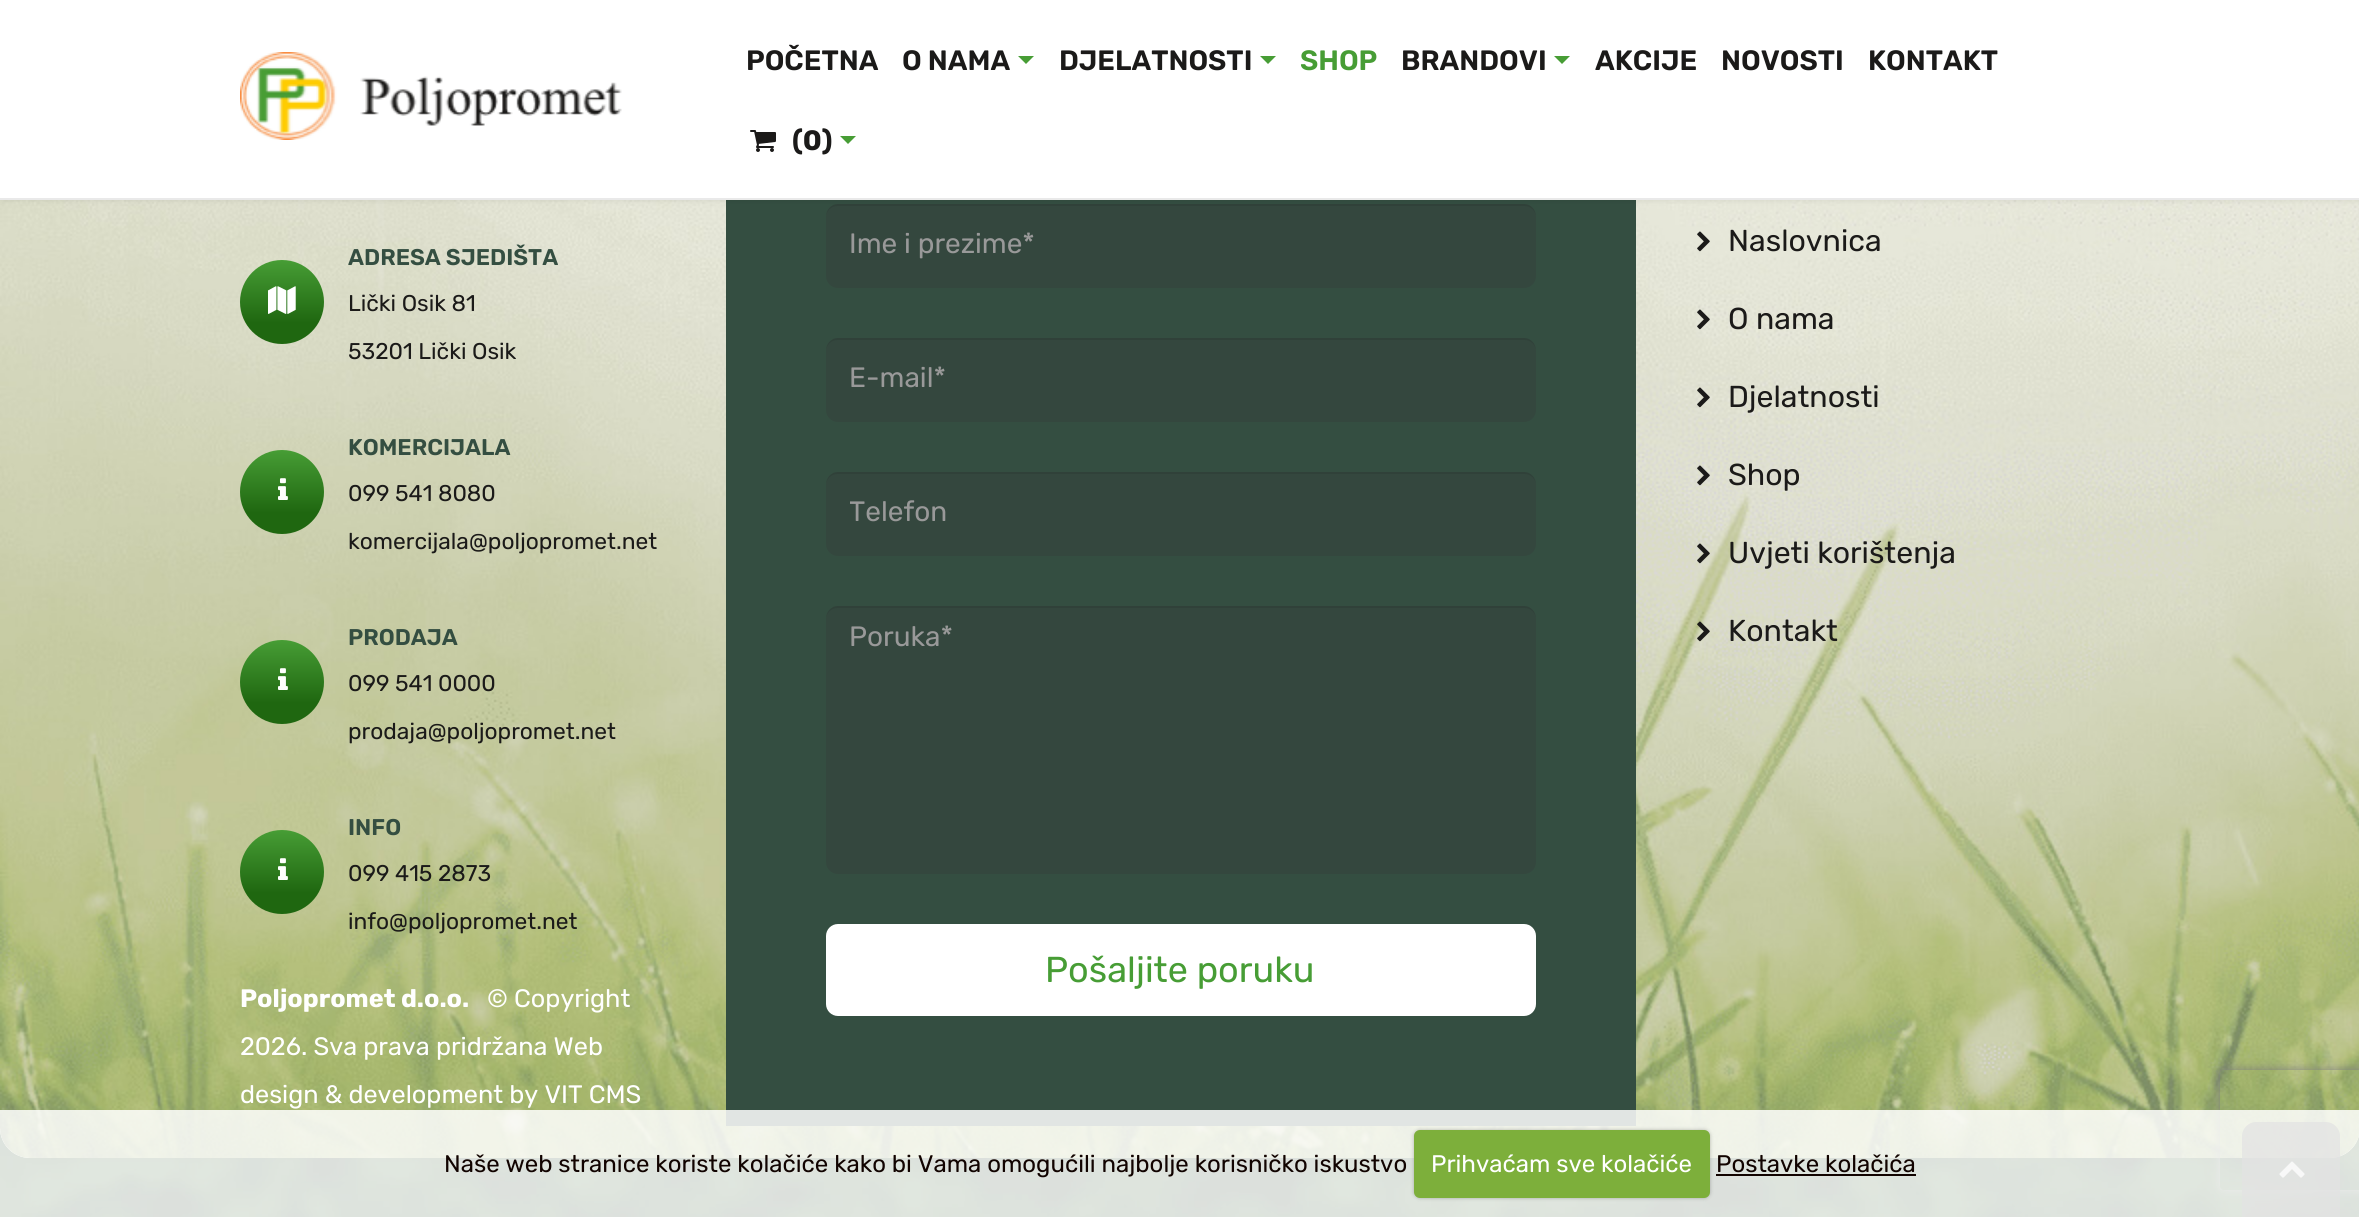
#include <cairo/cairo.h>
#include <math.h>
#include <stddef.h>

typedef struct { double x, y; const char *s; } line_t;
static cairo_t *cr;

static void rgb(unsigned color)
{
	cairo_set_source_rgb(cr, (color >> 16) / 255.0, (color >> 8 & 255) / 255.0, (color & 255) / 255.0);
}

static void rrect(double x, double y, double w, double h, double r)
{
	cairo_new_sub_path(cr);
	cairo_arc(cr, x + w - r, y + h - r, r, 0, M_PI / 2);
	cairo_arc(cr, x + r, y + h - r, r, M_PI / 2, M_PI);
	cairo_arc(cr, x + r, y + r, r, M_PI, 1.5 * M_PI);
	cairo_arc(cr, x + w - r, y + r, r, 1.5 * M_PI, 2 * M_PI);
	cairo_close_path(cr);
}

static void soft_shadow(double x, double y, double w, double h, double r, double blur, double alpha)
{
	cairo_push_group_with_content(cr, CAIRO_CONTENT_ALPHA);
	cairo_set_operator(cr, CAIRO_OPERATOR_SOURCE);
	for (int i = 15; i >= -15 && fmin(w, h) + blur * i / 3 > 0; i -= 2) {
		double e = blur * i / 6;
		cairo_set_source_rgba(cr, 0, 0, 0, alpha * erfc((i - 1) / 8.5) / 2);
		rrect(x - e, y - e, w + 2 * e, h + 2 * e, fmax(0, fmin(r + e + blur * .6, fmin(w, h) / 2 + e)));
		cairo_fill(cr);
	}
	cairo_pattern_t *soft = cairo_pop_group(cr);
	cairo_mask(cr, soft);
	cairo_pattern_destroy(soft);
}

static void image(const char *path, double x, double y, double w, double h)
{
	cairo_surface_t *image = cairo_image_surface_create_from_png(path);
	cairo_save(cr);
	cairo_set_source_surface(cr, image, x, y);
	cairo_rectangle(cr, x, y, w, h);
	cairo_fill(cr);
	cairo_restore(cr);
	cairo_surface_destroy(image);
}

int main(void) {
	cairo_surface_t *surface = cairo_image_surface_create(CAIRO_FORMAT_RGB24, 2359, 1217);
	cr = cairo_create(surface);
	cairo_font_options_t *options = cairo_font_options_create();
	cairo_font_options_set_hint_metrics(options, CAIRO_HINT_METRICS_OFF);
	cairo_font_options_set_hint_style(options, CAIRO_HINT_STYLE_NONE);
	cairo_set_font_options(cr, options);
	cairo_set_miter_limit(cr, 4);
	cairo_pattern_t *gradient;
	rgb(0xffffff);
	cairo_paint(cr);
	image("img/1.png", 0, 1128, 2359, 89);
	rgb(0x000000);
	soft_shadow(0, -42, 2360, 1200, 30, 4, 0.15);
	rgb(0xffffff);
	rrect(0, -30, 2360, 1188, 30);
	cairo_fill(cr);
	image("img/4.png", 0, 200, 2359, 958);
	rgb(0x344e41);
	cairo_rectangle(cr, 726, 200, 910, 926);
	cairo_fill(cr);
	rgb(0x34473e);
	rrect(826, 204, 710, 84, 12);
	cairo_fill(cr);
	cairo_set_source_rgba(cr, 0, 0, 0, 0.08);
	cairo_new_path(cr);
	cairo_move_to(cr, 838, 206);
	cairo_line_to(cr, 1524, 206);
	cairo_curve_to(cr, 1531, 206, 1536, 211, 1536, 218);
	cairo_curve_to(cr, 1536, 211, 1532, 204, 1524, 204);
	cairo_line_to(cr, 838, 204);
	cairo_curve_to(cr, 830, 204, 826, 211, 826, 218);
	cairo_curve_to(cr, 826, 211, 831, 206, 838, 206);
	cairo_close_path(cr);
	cairo_fill(cr);
	rgb(0x000000);
	soft_shadow(0, -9, 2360, 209, 0, 3, 0.1);
	rgb(0xffffff);
	cairo_rectangle(cr, 0, 0, 2359, 198);
	cairo_fill(cr);
	rgb(0xe9e9e9);
	cairo_rectangle(cr, 0, 198, 2359, 2);
	cairo_fill(cr);
	image("img/2.png", 240, 52, 382, 88);
	rgb(0x479d35);
	cairo_new_path(cr);
	cairo_move_to(cr, 1018, 56);
	cairo_line_to(cr, 1034, 56);
	cairo_line_to(cr, 1026, 64);
	cairo_close_path(cr);
	cairo_fill(cr);
	cairo_new_path(cr);
	cairo_move_to(cr, 1260, 56);
	cairo_line_to(cr, 1276, 56);
	cairo_line_to(cr, 1268, 64);
	cairo_close_path(cr);
	cairo_fill(cr);
	cairo_new_path(cr);
	cairo_move_to(cr, 1554, 56);
	cairo_line_to(cr, 1570, 56);
	cairo_line_to(cr, 1562, 64);
	cairo_close_path(cr);
	cairo_fill(cr);
	image("img/3.png", 750, 130, 26, 22);
	cairo_new_path(cr);
	cairo_move_to(cr, 840, 136);
	cairo_line_to(cr, 856, 136);
	cairo_line_to(cr, 848, 144);
	cairo_close_path(cr);
	cairo_fill(cr);
	gradient = cairo_pattern_create_linear(282, 260, 282, 344);
	cairo_pattern_add_color_stop_rgba(gradient, 0, 0.278, 0.616, 0.208, 1);
	cairo_pattern_add_color_stop_rgba(gradient, 0.75, 0.122, 0.404, 0.063, 1);
	cairo_set_source(cr, gradient);
	cairo_pattern_destroy(gradient);
	cairo_arc(cr, 282, 302, 42, 0, 2 * M_PI);
	cairo_fill(cr);
	image("img/5.png", 268, 286, 28, 28);
	gradient = cairo_pattern_create_linear(282, 450, 282, 534);
	cairo_pattern_add_color_stop_rgba(gradient, 0, 0.278, 0.616, 0.208, 1);
	cairo_pattern_add_color_stop_rgba(gradient, 0.75, 0.122, 0.404, 0.063, 1);
	cairo_set_source(cr, gradient);
	cairo_pattern_destroy(gradient);
	cairo_arc(cr, 282, 492, 42, 0, 2 * M_PI);
	cairo_fill(cr);
	image("img/6.png", 278, 478, 10, 22);
	gradient = cairo_pattern_create_linear(282, 640, 282, 724);
	cairo_pattern_add_color_stop_rgba(gradient, 0, 0.278, 0.616, 0.208, 1);
	cairo_pattern_add_color_stop_rgba(gradient, 0.75, 0.122, 0.404, 0.063, 1);
	cairo_set_source(cr, gradient);
	cairo_pattern_destroy(gradient);
	cairo_arc(cr, 282, 682, 42, 0, 2 * M_PI);
	cairo_fill(cr);
	image("img/6.png", 278, 668, 10, 22);
	gradient = cairo_pattern_create_linear(282, 830, 282, 914);
	cairo_pattern_add_color_stop_rgba(gradient, 0, 0.278, 0.616, 0.208, 1);
	cairo_pattern_add_color_stop_rgba(gradient, 0.75, 0.122, 0.404, 0.063, 1);
	cairo_set_source(cr, gradient);
	cairo_pattern_destroy(gradient);
	cairo_arc(cr, 282, 872, 42, 0, 2 * M_PI);
	cairo_fill(cr);
	image("img/6.png", 278, 858, 10, 22);
	rgb(0x34473e);
	rrect(826, 338, 710, 84, 12);
	cairo_fill(cr);
	cairo_set_source_rgba(cr, 0, 0, 0, 0.08);
	cairo_new_path(cr);
	cairo_move_to(cr, 838, 340);
	cairo_line_to(cr, 1524, 340);
	cairo_curve_to(cr, 1531, 340, 1536, 345, 1536, 352);
	cairo_curve_to(cr, 1536, 345, 1532, 338, 1524, 338);
	cairo_line_to(cr, 838, 338);
	cairo_curve_to(cr, 830, 338, 826, 345, 826, 352);
	cairo_curve_to(cr, 826, 345, 831, 340, 838, 340);
	cairo_close_path(cr);
	cairo_fill(cr);
	rgb(0x34473e);
	rrect(826, 472, 710, 84, 12);
	cairo_fill(cr);
	cairo_set_source_rgba(cr, 0, 0, 0, 0.08);
	cairo_new_path(cr);
	cairo_move_to(cr, 838, 474);
	cairo_line_to(cr, 1524, 474);
	cairo_curve_to(cr, 1531, 474, 1536, 479, 1536, 486);
	cairo_curve_to(cr, 1536, 479, 1532, 472, 1524, 472);
	cairo_line_to(cr, 838, 472);
	cairo_curve_to(cr, 830, 472, 826, 479, 826, 486);
	cairo_curve_to(cr, 826, 479, 831, 474, 838, 474);
	cairo_close_path(cr);
	cairo_fill(cr);
	rgb(0x34473e);
	rrect(826, 606, 710, 268, 12);
	cairo_fill(cr);
	cairo_set_source_rgba(cr, 0, 0, 0, 0.08);
	cairo_new_path(cr);
	cairo_move_to(cr, 838, 608);
	cairo_line_to(cr, 1524, 608);
	cairo_curve_to(cr, 1531, 608, 1536, 613, 1536, 620);
	cairo_curve_to(cr, 1536, 613, 1532, 606, 1524, 606);
	cairo_line_to(cr, 838, 606);
	cairo_curve_to(cr, 830, 606, 826, 613, 826, 620);
	cairo_curve_to(cr, 826, 613, 831, 608, 838, 608);
	cairo_close_path(cr);
	cairo_fill(cr);
	rgb(0xffffff);
	rrect(827, 925, 708, 90, 11);
	cairo_fill_preserve(cr);
	cairo_stroke(cr);
	image("img/7.png", 1697, 231, 13, 21);
	image("img/8.png", 1697, 309, 13, 21);
	image("img/9.png", 1697, 387, 13, 21);
	image("img/10.png", 1697, 465, 13, 21);
	image("img/11.png", 1697, 543, 13, 21);
	image("img/12.png", 1697, 621, 13, 21);
	cairo_save(cr);
	cairo_set_fill_rule(cr, CAIRO_FILL_RULE_EVEN_ODD);
	cairo_new_path(cr);
	cairo_move_to(cr, 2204, 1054);
	cairo_line_to(cr, 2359, 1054);
	cairo_line_to(cr, 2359, 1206);
	cairo_line_to(cr, 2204, 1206);
	cairo_close_path(cr);
	cairo_move_to(cr, 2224, 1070);
	cairo_line_to(cr, 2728, 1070);
	cairo_curve_to(cr, 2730, 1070, 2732, 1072, 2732, 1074);
	cairo_line_to(cr, 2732, 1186);
	cairo_curve_to(cr, 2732, 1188, 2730, 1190, 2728, 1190);
	cairo_line_to(cr, 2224, 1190);
	cairo_curve_to(cr, 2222, 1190, 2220, 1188, 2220, 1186);
	cairo_line_to(cr, 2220, 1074);
	cairo_curve_to(cr, 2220, 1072, 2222, 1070, 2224, 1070);
	cairo_close_path(cr);
	cairo_clip(cr);
	rgb(0x808080);
	soft_shadow(2220, 1070, 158, 120, 4, 5, 1);
	cairo_restore(cr);
	cairo_set_source_rgba(cr, 0.251, 0.251, 0.251, 0.75);
	cairo_new_path(cr);
	cairo_move_to(cr, 2256, 1122);
	cairo_line_to(cr, 2326, 1122);
	cairo_curve_to(cr, 2333.5, 1122, 2340, 1128.5, 2340, 1136);
	cairo_line_to(cr, 2340, 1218);
	cairo_line_to(cr, 2242, 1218);
	cairo_line_to(cr, 2242, 1136);
	cairo_curve_to(cr, 2242, 1128.5, 2248.5, 1122, 2256, 1122);
	cairo_close_path(cr);
	cairo_fill(cr);
	image("img/13.png", 2279, 1161, 26, 17);
	cairo_set_source_rgba(cr, 1, 1, 1, 0.85);
	cairo_rectangle(cr, 0, 1110, 2359, 107);
	cairo_fill(cr);
	rgb(0x000000);
	soft_shadow(1414, 1130, 296, 68, 6, 2, 0.25);
	rgb(0x7daf3b);
	rrect(1414, 1130, 296, 68, 6);
	cairo_fill(cr);
	rgb(0x110300);
	cairo_rectangle(cr, 1716, 1174, 200, 2);
	cairo_fill(cr);
	cairo_select_font_face(cr, "Rubik SemiBold", CAIRO_FONT_SLANT_NORMAL, CAIRO_FONT_WEIGHT_NORMAL);
	cairo_set_font_size(cr, 28);
	rgb(0x1b1a19);
	{
		static const line_t items[] = {
			{746, 70, "POČETNA"},
			{902, 70, "O NAMA"},
			{1059, 70, "DJELATNOSTI"},
		};
		for (size_t i = 0; i < sizeof items / sizeof *items; i++) {
			cairo_move_to(cr, items[i].x, items[i].y);
			cairo_show_text(cr, items[i].s);
		}
	}
	rgb(0x479d35);
	cairo_move_to(cr, 1300, 70);
	cairo_show_text(cr, "SHOP");
	rgb(0x1b1a19);
	{
		static const line_t items[] = {
			{1401, 70, "BRANDOVI"},
			{1595, 70, "AKCIJE"},
			{1721, 70, "NOVOSTI"},
			{1868, 70, "KONTAKT"},
		};
		for (size_t i = 0; i < sizeof items / sizeof *items; i++) {
			cairo_move_to(cr, items[i].x, items[i].y);
			cairo_show_text(cr, items[i].s);
		}
	}
	cairo_select_font_face(cr, "Rubik", CAIRO_FONT_SLANT_NORMAL, CAIRO_FONT_WEIGHT_BOLD);
	cairo_move_to(cr, 792, 150);
	cairo_show_text(cr, "(0)");
	cairo_select_font_face(cr, "Rubik SemiBold", CAIRO_FONT_SLANT_NORMAL, CAIRO_FONT_WEIGHT_NORMAL);
	cairo_set_font_size(cr, 22.75);
	rgb(0x344e41);
	cairo_move_to(cr, 348, 265);
	cairo_show_text(cr, "ADRESA SJEDIŠTA");
	cairo_select_font_face(cr, "Rubik", CAIRO_FONT_SLANT_NORMAL, CAIRO_FONT_WEIGHT_NORMAL);
	rgb(0x1b1a19);
	cairo_move_to(cr, 348, 311);
	cairo_show_text(cr, "Lički Osik 81");
	cairo_move_to(cr, 348, 359);
	cairo_show_text(cr, "53201 Lički Osik");
	cairo_select_font_face(cr, "Rubik SemiBold", CAIRO_FONT_SLANT_NORMAL, CAIRO_FONT_WEIGHT_NORMAL);
	rgb(0x344e41);
	cairo_move_to(cr, 348, 455);
	cairo_show_text(cr, "KOMERCIJALA");
	cairo_select_font_face(cr, "Rubik", CAIRO_FONT_SLANT_NORMAL, CAIRO_FONT_WEIGHT_NORMAL);
	rgb(0x1b1a19);
	cairo_move_to(cr, 348, 501);
	cairo_show_text(cr, "099 541 8080");
	cairo_move_to(cr, 348, 549);
	cairo_show_text(cr, "komercijala@poljopromet.net");
	cairo_select_font_face(cr, "Rubik SemiBold", CAIRO_FONT_SLANT_NORMAL, CAIRO_FONT_WEIGHT_NORMAL);
	rgb(0x344e41);
	cairo_move_to(cr, 348, 645);
	cairo_show_text(cr, "PRODAJA");
	cairo_select_font_face(cr, "Rubik", CAIRO_FONT_SLANT_NORMAL, CAIRO_FONT_WEIGHT_NORMAL);
	rgb(0x1b1a19);
	cairo_move_to(cr, 348, 691);
	cairo_show_text(cr, "099 541 0000");
	cairo_move_to(cr, 348, 739);
	cairo_show_text(cr, "prodaja@poljopromet.net");
	cairo_select_font_face(cr, "Rubik SemiBold", CAIRO_FONT_SLANT_NORMAL, CAIRO_FONT_WEIGHT_NORMAL);
	rgb(0x344e41);
	cairo_move_to(cr, 348, 835);
	cairo_show_text(cr, "INFO");
	cairo_select_font_face(cr, "Rubik", CAIRO_FONT_SLANT_NORMAL, CAIRO_FONT_WEIGHT_NORMAL);
	rgb(0x1b1a19);
	cairo_move_to(cr, 348, 881);
	cairo_show_text(cr, "099 415 2873");
	cairo_move_to(cr, 348, 929);
	cairo_show_text(cr, "info@poljopromet.net");
	cairo_select_font_face(cr, "Rubik", CAIRO_FONT_SLANT_NORMAL, CAIRO_FONT_WEIGHT_BOLD);
	cairo_set_font_size(cr, 25.25);
	rgb(0xffffff);
	cairo_move_to(cr, 240, 1007);
	cairo_show_text(cr, "Poljopromet d.o.o.");
	cairo_select_font_face(cr, "Rubik", CAIRO_FONT_SLANT_NORMAL, CAIRO_FONT_WEIGHT_NORMAL);
	{
		static const line_t items[] = {
			{487, 1007, "© Copyright"},
			{240, 1055, "2026. Sva prava pridržana Web"},
			{240, 1103, "design & development by VIT CMS"},
		};
		for (size_t i = 0; i < sizeof items / sizeof *items; i++) {
			cairo_move_to(cr, items[i].x, items[i].y);
			cairo_show_text(cr, items[i].s);
		}
	}
	cairo_set_font_size(cr, 28);
	rgb(0x999999);
	cairo_move_to(cr, 849, 253);
	cairo_show_text(cr, "Ime i prezime*");
	cairo_move_to(cr, 849, 387);
	cairo_show_text(cr, "E-mail*");
	cairo_save(cr);
	cairo_rectangle(cr, 850, 496, 662, 34);
	cairo_clip(cr);
	cairo_move_to(cr, 849, 521);
	cairo_show_text(cr, "Telefon");
	cairo_restore(cr);
	cairo_move_to(cr, 849, 646);
	cairo_show_text(cr, "Poruka*");
	cairo_set_font_size(cr, 36);
	rgb(0x479d35);
	cairo_move_to(cr, 1045, 982);
	cairo_show_text(cr, "Pošaljite poruku");
	cairo_set_font_size(cr, 30.25);
	rgb(0x1b1a19);
	{
		static const line_t items[] = {
			{1728, 251, "Naslovnica"},
			{1728, 329, "O nama"},
			{1728, 407, "Djelatnosti"},
			{1728, 485, "Shop"},
			{1728, 563, "Uvjeti korištenja"},
			{1728, 641, "Kontakt"},
		};
		for (size_t i = 0; i < sizeof items / sizeof *items; i++) {
			cairo_move_to(cr, items[i].x, items[i].y);
			cairo_show_text(cr, items[i].s);
		}
	}
	cairo_set_font_size(cr, 24);
	rgb(0x110300);
	cairo_move_to(cr, 444, 1172);
	cairo_show_text(cr, "Naše web stranice koriste kolačiće kako bi Vama omogućili najbolje korisničko iskustvo");
	rgb(0xffffff);
	cairo_move_to(cr, 1431, 1172);
	cairo_show_text(cr, "Prihvaćam sve kolačiće");
	rgb(0x110300);
	cairo_move_to(cr, 1716, 1172);
	cairo_show_text(cr, "Postavke kolačića");
	cairo_surface_write_to_png(surface, "page.png");
	cairo_font_options_destroy(options);
	cairo_destroy(cr);
	cairo_surface_destroy(surface);
	return 0;
}
